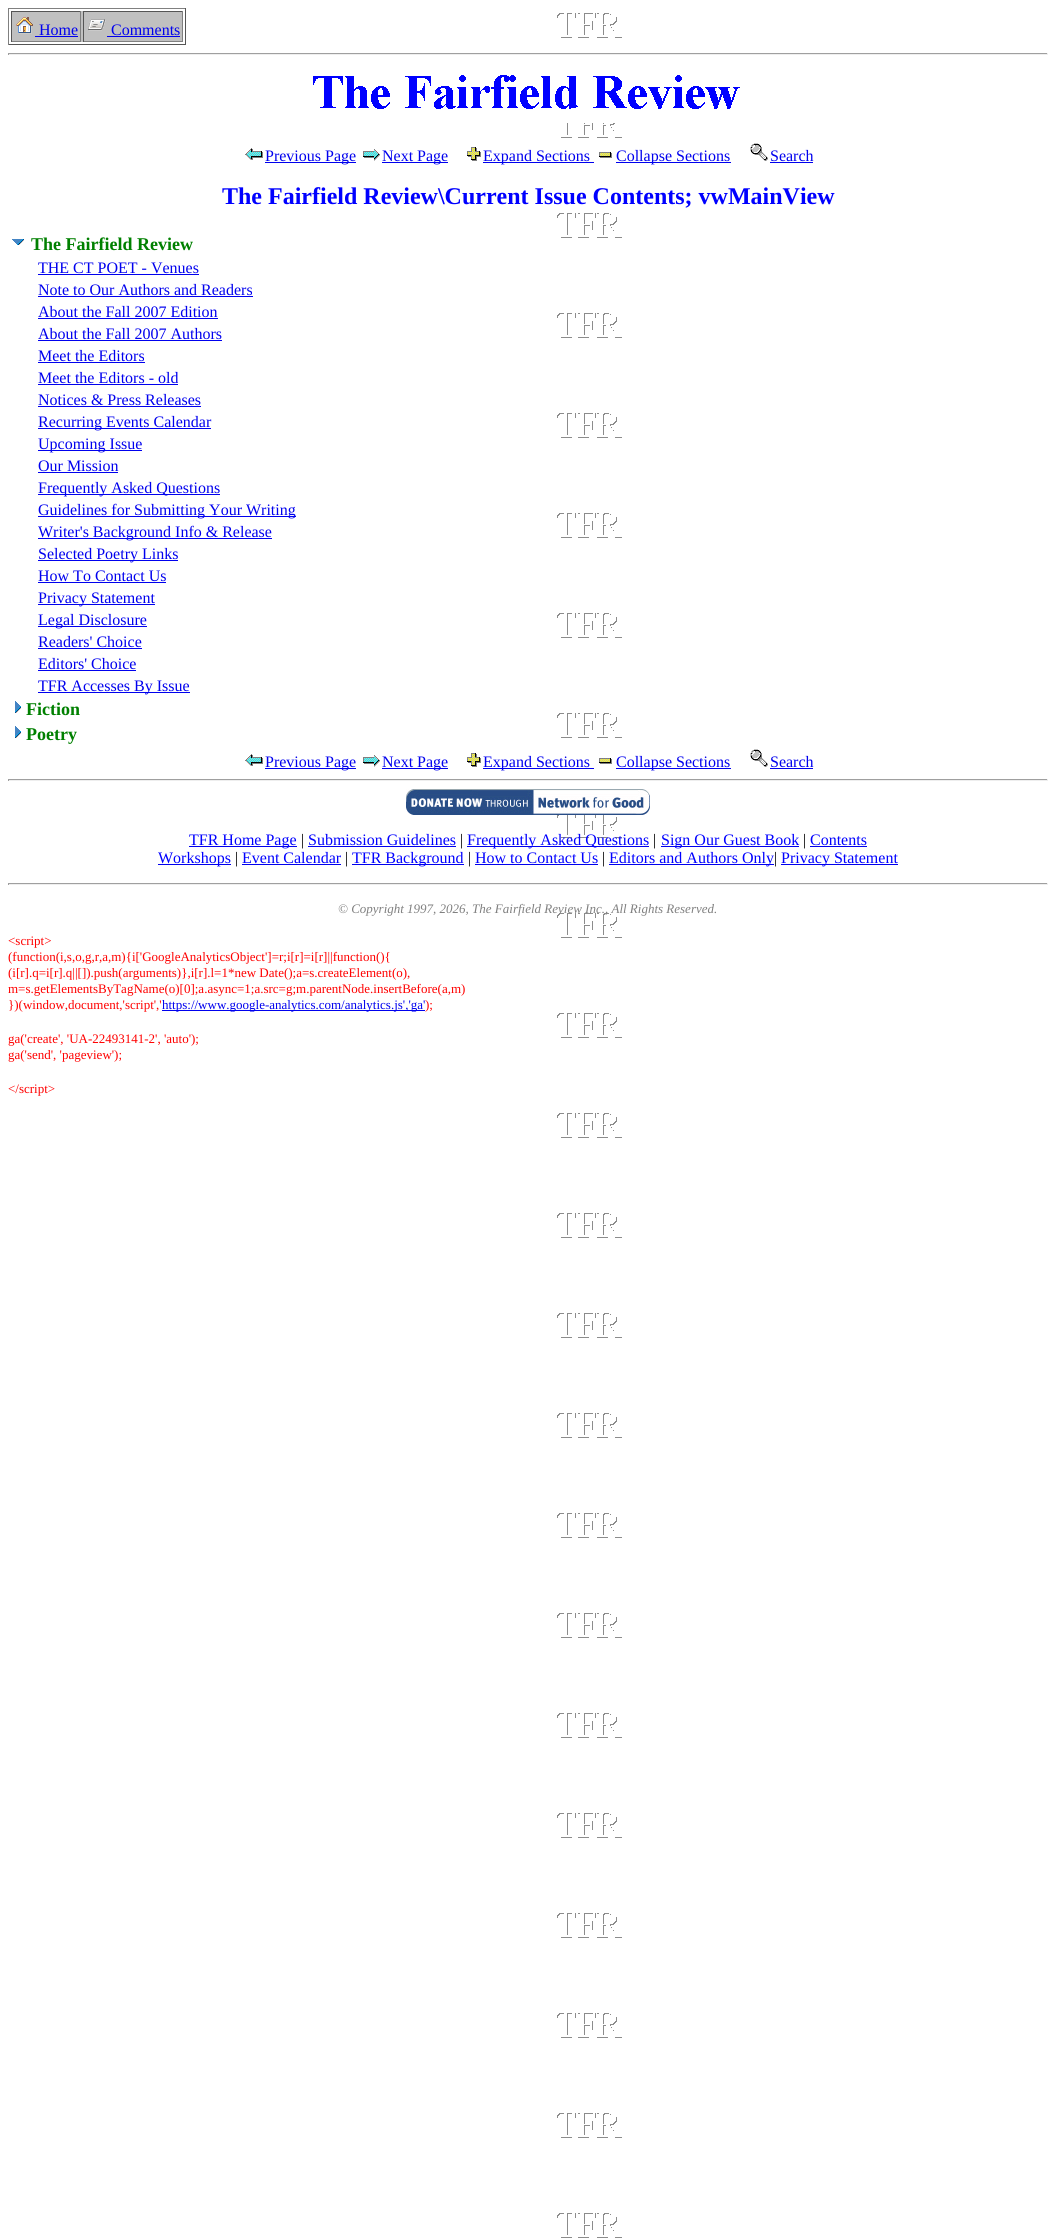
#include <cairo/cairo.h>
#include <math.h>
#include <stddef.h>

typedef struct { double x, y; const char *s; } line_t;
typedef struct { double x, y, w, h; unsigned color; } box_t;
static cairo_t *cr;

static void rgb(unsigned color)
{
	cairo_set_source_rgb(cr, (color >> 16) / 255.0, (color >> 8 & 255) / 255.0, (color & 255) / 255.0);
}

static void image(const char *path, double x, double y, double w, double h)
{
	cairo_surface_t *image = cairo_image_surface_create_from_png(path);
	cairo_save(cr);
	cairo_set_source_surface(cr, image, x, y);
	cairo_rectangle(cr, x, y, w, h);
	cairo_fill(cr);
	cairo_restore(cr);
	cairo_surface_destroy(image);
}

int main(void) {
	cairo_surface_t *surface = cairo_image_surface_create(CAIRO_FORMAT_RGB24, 1056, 2239);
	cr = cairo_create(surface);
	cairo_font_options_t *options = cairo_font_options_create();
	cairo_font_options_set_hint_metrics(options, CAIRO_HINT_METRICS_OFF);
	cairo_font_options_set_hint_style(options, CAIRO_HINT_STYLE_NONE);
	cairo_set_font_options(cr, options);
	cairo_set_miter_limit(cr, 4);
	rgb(0xffffff);
	cairo_paint(cr);
	image("img/1.png", 557, 13, 65, 2225);
	{
		static const box_t items[] = {
			{8, 8, 178, 1, 0x808080},
			{185, 8, 1, 37, 0x555555},
			{8, 44, 178, 1, 0x555555},
			{8, 8, 1, 37, 0x808080},
			{12, 11, 170, 31, 0xc0c0c0},
			{11, 11, 70, 1, 0x555555},
			{80, 11, 1, 31, 0x808080},
			{11, 41, 70, 1, 0x808080},
			{11, 11, 1, 31, 0x555555},
		};
		for (size_t i = 0; i < sizeof items / sizeof *items; i++) {
			rgb(items[i].color);
			cairo_rectangle(cr, items[i].x, items[i].y, items[i].w, items[i].h);
			cairo_fill(cr);
		}
	}
	image("img/2.png", 16, 17, 17, 17);
	{
		static const box_t items[] = {
			{35, 36, 43, 1, 0x0000ee},
			{83, 11, 100, 1, 0x555555},
			{182, 11, 1, 31, 0x808080},
			{83, 41, 100, 1, 0x808080},
			{83, 11, 1, 31, 0x555555},
		};
		for (size_t i = 0; i < sizeof items / sizeof *items; i++) {
			rgb(items[i].color);
			cairo_rectangle(cr, items[i].x, items[i].y, items[i].w, items[i].h);
			cairo_fill(cr);
		}
	}
	image("img/3.png", 88, 19, 18, 12);
	{
		static const box_t items[] = {
			{107, 36, 73, 1, 0x0000ee},
			{8, 53, 1040, 1, 0x9f9f9f},
			{1047, 53, 1, 2, 0xeeeeee},
			{8, 54, 1040, 1, 0xeeeeee},
			{8, 53, 1, 2, 0x9f9f9f},
		};
		for (size_t i = 0; i < sizeof items / sizeof *items; i++) {
			rgb(items[i].color);
			cairo_rectangle(cr, items[i].x, items[i].y, items[i].w, items[i].h);
			cairo_fill(cr);
		}
	}
	image("img/4.png", 313, 75, 427, 48);
	image("img/5.png", 245, 148, 18, 12);
	rgb(0x0000ee);
	cairo_rectangle(cr, 265, 162, 91, 1);
	cairo_fill(cr);
	image("img/6.png", 363, 149, 17, 12);
	cairo_rectangle(cr, 382, 162, 66, 1);
	cairo_fill(cr);
	image("img/7.png", 467, 147, 14, 14);
	cairo_rectangle(cr, 483, 162, 111, 1);
	cairo_fill(cr);
	image("img/8.png", 599, 152, 13, 6);
	cairo_rectangle(cr, 616, 162, 115, 1);
	cairo_fill(cr);
	image("img/9.png", 750, 143, 18, 18);
	cairo_rectangle(cr, 770, 162, 43, 1);
	cairo_fill(cr);
	image("img/10.png", 12, 239, 12, 6);
	{
		static const box_t items[] = {
			{38, 274, 161, 1, 0x0000ee},
			{38, 296, 215, 1, 0x0000ee},
			{38, 318, 180, 1, 0x0000ee},
			{38, 340, 184, 1, 0x0000ee},
			{38, 362, 107, 1, 0x0000ee},
			{38, 384, 140, 1, 0x0000ee},
			{38, 406, 163, 1, 0x0000ee},
			{38, 428, 173, 1, 0x0000ee},
			{38, 450, 104, 1, 0x0000ee},
			{38, 472, 80, 1, 0x0000ee},
			{38, 494, 182, 1, 0x0000ee},
			{38, 516, 258, 1, 0x0000ee},
			{38, 538, 234, 1, 0x0000ee},
			{38, 560, 140, 1, 0x0000ee},
			{38, 582, 128, 1, 0x0000ee},
			{38, 604, 117, 1, 0x0000ee},
			{38, 626, 109, 1, 0x0000ee},
			{38, 648, 104, 1, 0x0000ee},
			{38, 670, 98, 1, 0x0000ee},
			{38, 692, 152, 1, 0x0000ee},
		};
		for (size_t i = 0; i < sizeof items / sizeof *items; i++) {
			rgb(items[i].color);
			cairo_rectangle(cr, items[i].x, items[i].y, items[i].w, items[i].h);
			cairo_fill(cr);
		}
	}
	image("img/11.png", 15, 701, 6, 12);
	image("img/11.png", 15, 726, 6, 12);
	image("img/5.png", 245, 754, 18, 12);
	cairo_rectangle(cr, 265, 768, 91, 1);
	cairo_fill(cr);
	image("img/6.png", 363, 755, 17, 12);
	cairo_rectangle(cr, 382, 768, 66, 1);
	cairo_fill(cr);
	image("img/7.png", 467, 753, 14, 14);
	cairo_rectangle(cr, 483, 768, 111, 1);
	cairo_fill(cr);
	image("img/8.png", 599, 758, 13, 6);
	cairo_rectangle(cr, 616, 768, 115, 1);
	cairo_fill(cr);
	image("img/9.png", 750, 749, 18, 18);
	{
		static const box_t items[] = {
			{770, 768, 43, 1, 0x0000ee},
			{8, 779, 1040, 1, 0x9f9f9f},
			{1047, 779, 1, 2, 0xeeeeee},
			{8, 780, 1040, 1, 0xeeeeee},
			{8, 779, 1, 2, 0x9f9f9f},
		};
		for (size_t i = 0; i < sizeof items / sizeof *items; i++) {
			rgb(items[i].color);
			cairo_rectangle(cr, items[i].x, items[i].y, items[i].w, items[i].h);
			cairo_fill(cr);
		}
	}
	image("img/12.png", 406, 789, 244, 26);
	{
		static const box_t items[] = {
			{189, 846, 108, 1, 0x0000ee},
			{308, 846, 148, 1, 0x0000ee},
			{467, 846, 182, 1, 0x0000ee},
			{661, 846, 138, 1, 0x0000ee},
			{810, 846, 57, 1, 0x0000ee},
			{158, 864, 73, 1, 0x0000ee},
			{242, 864, 99, 1, 0x0000ee},
			{352, 864, 112, 1, 0x0000ee},
			{475, 864, 123, 1, 0x0000ee},
			{609, 864, 165, 1, 0x0000ee},
			{781, 864, 117, 1, 0x0000ee},
			{8, 883, 1040, 1, 0x9f9f9f},
			{1047, 883, 1, 2, 0xeeeeee},
			{8, 884, 1040, 1, 0xeeeeee},
			{8, 883, 1, 2, 0x9f9f9f},
			{162, 1010, 263, 1, 0x0000ee},
		};
		for (size_t i = 0; i < sizeof items / sizeof *items; i++) {
			rgb(items[i].color);
			cairo_rectangle(cr, items[i].x, items[i].y, items[i].w, items[i].h);
			cairo_fill(cr);
		}
	}
	cairo_select_font_face(cr, "Liberation Serif", CAIRO_FONT_SLANT_NORMAL, CAIRO_FONT_WEIGHT_NORMAL);
	cairo_set_font_size(cr, 16);
	{
		static const line_t items[] = {
			{39, 35, "Home"},
			{111, 35, "Comments"},
			{265, 161, "Previous Page"},
			{382, 161, "Next Page"},
			{483, 161, "Expand Sections"},
			{616, 161, "Collapse Sections"},
			{770, 161, "Search"},
		};
		for (size_t i = 0; i < sizeof items / sizeof *items; i++) {
			cairo_move_to(cr, items[i].x, items[i].y);
			cairo_show_text(cr, items[i].s);
		}
	}
	cairo_select_font_face(cr, "Liberation Serif", CAIRO_FONT_SLANT_NORMAL, CAIRO_FONT_WEIGHT_BOLD);
	cairo_set_font_size(cr, 24);
	rgb(0x0000ff);
	cairo_move_to(cr, 222, 204);
	cairo_show_text(cr, "The Fairfield Review\\Current Issue Contents; vwMainView");
	cairo_set_font_size(cr, 18);
	rgb(0x008000);
	cairo_move_to(cr, 31, 250);
	cairo_show_text(cr, "The Fairfield Review");
	cairo_select_font_face(cr, "Liberation Serif", CAIRO_FONT_SLANT_NORMAL, CAIRO_FONT_WEIGHT_NORMAL);
	cairo_set_font_size(cr, 16);
	rgb(0x0000ee);
	{
		static const line_t items[] = {
			{38, 273, "THE CT POET - Venues"},
			{38, 295, "Note to Our Authors and Readers"},
			{38, 317, "About the Fall 2007 Edition"},
			{38, 339, "About the Fall 2007 Authors"},
			{38, 361, "Meet the Editors"},
			{38, 383, "Meet the Editors - old"},
			{38, 405, "Notices & Press Releases"},
			{38, 427, "Recurring Events Calendar"},
			{38, 449, "Upcoming Issue"},
			{38, 471, "Our Mission"},
			{38, 493, "Frequently Asked Questions"},
			{38, 515, "Guidelines for Submitting Your Writing"},
			{38, 537, "Writer's Background Info & Release"},
			{38, 559, "Selected Poetry Links"},
			{38, 581, "How To Contact Us"},
			{38, 603, "Privacy Statement"},
			{38, 625, "Legal Disclosure"},
			{38, 647, "Readers' Choice"},
			{38, 669, "Editors' Choice"},
			{38, 691, "TFR Accesses By Issue"},
		};
		for (size_t i = 0; i < sizeof items / sizeof *items; i++) {
			cairo_move_to(cr, items[i].x, items[i].y);
			cairo_show_text(cr, items[i].s);
		}
	}
	cairo_select_font_face(cr, "Liberation Serif", CAIRO_FONT_SLANT_NORMAL, CAIRO_FONT_WEIGHT_BOLD);
	cairo_set_font_size(cr, 18);
	rgb(0x008000);
	cairo_move_to(cr, 26, 715);
	cairo_show_text(cr, "Fiction");
	cairo_move_to(cr, 26, 740);
	cairo_show_text(cr, "Poetry");
	cairo_select_font_face(cr, "Liberation Serif", CAIRO_FONT_SLANT_NORMAL, CAIRO_FONT_WEIGHT_NORMAL);
	cairo_set_font_size(cr, 16);
	rgb(0x0000ee);
	{
		static const line_t items[] = {
			{265, 767, "Previous Page"},
			{382, 767, "Next Page"},
			{483, 767, "Expand Sections"},
			{616, 767, "Collapse Sections"},
			{770, 767, "Search"},
		};
		for (size_t i = 0; i < sizeof items / sizeof *items; i++) {
			cairo_move_to(cr, items[i].x, items[i].y);
			cairo_show_text(cr, items[i].s);
		}
	}
	rgb(0x0000ff);
	cairo_move_to(cr, 189, 845);
	cairo_show_text(cr, "TFR Home Page");
	rgb(0x000000);
	cairo_move_to(cr, 301, 845);
	cairo_show_text(cr, "|");
	rgb(0x0000ff);
	cairo_move_to(cr, 308, 845);
	cairo_show_text(cr, "Submission Guidelines");
	rgb(0x000000);
	cairo_move_to(cr, 460, 845);
	cairo_show_text(cr, "|");
	rgb(0x0000ff);
	cairo_move_to(cr, 467, 845);
	cairo_show_text(cr, "Frequently Asked Questions");
	rgb(0x000000);
	cairo_move_to(cr, 653, 845);
	cairo_show_text(cr, "|");
	rgb(0x0000ff);
	cairo_move_to(cr, 661, 845);
	cairo_show_text(cr, "Sign Our Guest Book");
	rgb(0x000000);
	cairo_move_to(cr, 803, 845);
	cairo_show_text(cr, "|");
	rgb(0x0000ff);
	cairo_move_to(cr, 810, 845);
	cairo_show_text(cr, "Contents");
	cairo_move_to(cr, 158, 863);
	cairo_show_text(cr, "Workshops");
	rgb(0x000000);
	cairo_move_to(cr, 235, 863);
	cairo_show_text(cr, "|");
	rgb(0x0000ff);
	cairo_move_to(cr, 242, 863);
	cairo_show_text(cr, "Event Calendar");
	rgb(0x000000);
	cairo_move_to(cr, 345, 863);
	cairo_show_text(cr, "|");
	rgb(0x0000ff);
	cairo_move_to(cr, 352, 863);
	cairo_show_text(cr, "TFR Background");
	rgb(0x000000);
	cairo_move_to(cr, 468, 863);
	cairo_show_text(cr, "|");
	rgb(0x0000ff);
	cairo_move_to(cr, 475, 863);
	cairo_show_text(cr, "How to Contact Us");
	rgb(0x000000);
	cairo_move_to(cr, 602, 863);
	cairo_show_text(cr, "|");
	rgb(0x0000ff);
	cairo_move_to(cr, 609, 863);
	cairo_show_text(cr, "Editors and Authors Only");
	rgb(0x000000);
	cairo_move_to(cr, 774, 863);
	cairo_show_text(cr, "|");
	rgb(0x0000ff);
	cairo_move_to(cr, 781, 863);
	cairo_show_text(cr, "Privacy Statement");
	cairo_select_font_face(cr, "Liberation Serif", CAIRO_FONT_SLANT_ITALIC, CAIRO_FONT_WEIGHT_NORMAL);
	cairo_set_font_size(cr, 13);
	rgb(0x808080);
	cairo_move_to(cr, 338, 913);
	cairo_show_text(cr, "© Copyright 1997, 2026, The Fairfield Review Inc., All Rights Reserved.");
	cairo_select_font_face(cr, "Liberation Serif", CAIRO_FONT_SLANT_NORMAL, CAIRO_FONT_WEIGHT_NORMAL);
	rgb(0xff0000);
	{
		static const line_t items[] = {
			{8, 945, "<script>"},
			{8, 961, "(function(i,s,o,g,r,a,m){i['GoogleAnalyticsObject']=r;i[r]=i[r]||function(){"},
			{8, 977, "(i[r].q=i[r].q||[]).push(arguments)},i[r].l=1*new Date();a=s.createElement(o),"},
			{8, 993, "m=s.getElementsByTagName(o)[0];a.async=1;a.src=g;m.parentNode.insertBefore(a,m)"},
			{8, 1009, "})(window,document,'script','"},
		};
		for (size_t i = 0; i < sizeof items / sizeof *items; i++) {
			cairo_move_to(cr, items[i].x, items[i].y);
			cairo_show_text(cr, items[i].s);
		}
	}
	rgb(0x0000ee);
	cairo_move_to(cr, 162, 1009);
	cairo_show_text(cr, "https://www.google-analytics.com/analytics.js','ga'");
	rgb(0xff0000);
	{
		static const line_t items[] = {
			{425, 1009, ");"},
			{8, 1043, "ga('create', 'UA-22493141-2', 'auto');"},
			{8, 1059, "ga('send', 'pageview');"},
			{8, 1093, "</script>"},
		};
		for (size_t i = 0; i < sizeof items / sizeof *items; i++) {
			cairo_move_to(cr, items[i].x, items[i].y);
			cairo_show_text(cr, items[i].s);
		}
	}
	cairo_surface_write_to_png(surface, "page.png");
	cairo_font_options_destroy(options);
	cairo_destroy(cr);
	cairo_surface_destroy(surface);
	return 0;
}
